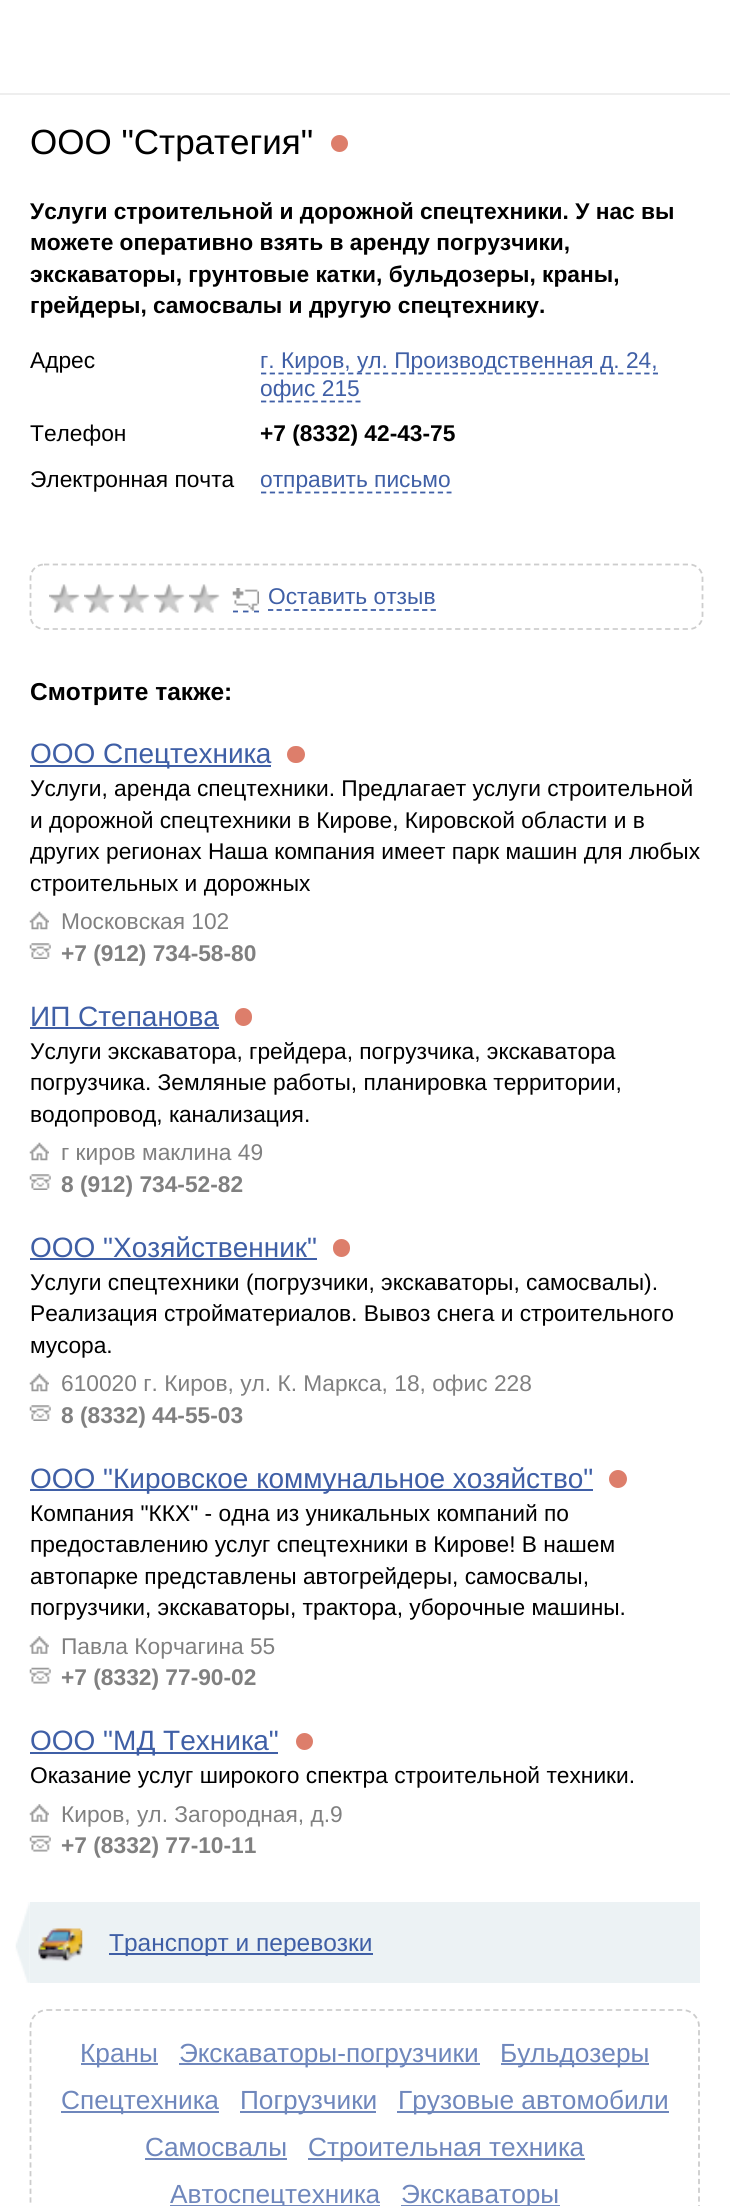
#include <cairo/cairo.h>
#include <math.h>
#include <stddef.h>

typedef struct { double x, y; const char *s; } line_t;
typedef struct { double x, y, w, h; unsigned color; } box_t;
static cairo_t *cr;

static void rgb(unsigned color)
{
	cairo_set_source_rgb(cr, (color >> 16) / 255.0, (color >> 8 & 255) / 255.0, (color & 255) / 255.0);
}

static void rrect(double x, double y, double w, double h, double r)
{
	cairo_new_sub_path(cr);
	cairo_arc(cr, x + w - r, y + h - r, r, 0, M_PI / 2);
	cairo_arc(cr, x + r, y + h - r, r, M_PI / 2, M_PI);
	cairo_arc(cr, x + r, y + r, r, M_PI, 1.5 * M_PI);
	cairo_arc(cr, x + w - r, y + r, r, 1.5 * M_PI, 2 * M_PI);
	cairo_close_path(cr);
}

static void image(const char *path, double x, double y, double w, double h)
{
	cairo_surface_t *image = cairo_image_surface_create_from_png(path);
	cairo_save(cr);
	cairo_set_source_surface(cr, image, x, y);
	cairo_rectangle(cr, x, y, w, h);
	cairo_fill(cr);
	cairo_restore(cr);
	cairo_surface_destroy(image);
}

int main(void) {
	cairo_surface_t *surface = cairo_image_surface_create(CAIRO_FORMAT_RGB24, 730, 2206);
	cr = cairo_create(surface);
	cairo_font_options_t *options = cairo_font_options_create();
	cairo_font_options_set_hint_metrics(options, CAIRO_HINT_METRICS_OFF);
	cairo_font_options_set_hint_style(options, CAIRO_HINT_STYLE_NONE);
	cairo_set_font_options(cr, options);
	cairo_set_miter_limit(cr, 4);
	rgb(0xffffff);
	cairo_paint(cr);
	rgb(0xeeeeee);
	cairo_rectangle(cr, 0, 93, 730, 2);
	cairo_fill(cr);
	rgb(0xdd7e6b);
	cairo_arc(cr, 339.5, 143.5, 8.5, 0, 2 * M_PI);
	cairo_fill(cr);
	cairo_new_path(cr);
	cairo_move_to(cr, 261, 373.5);
	cairo_line_to(cr, 658, 373.5);
	rgb(0x3f5fa6);
	cairo_set_line_width(cr, 1.8);
	cairo_set_dash(cr, (double[]){5.25, 3.46}, 2, 0);
	cairo_stroke(cr);
	cairo_new_path(cr);
	cairo_move_to(cr, 261, 401.5);
	cairo_line_to(cr, 360.5, 401.5);
	cairo_set_dash(cr, (double[]){5.25, 3.34}, 2, 0);
	cairo_stroke(cr);
	cairo_new_path(cr);
	cairo_move_to(cr, 261, 492.5);
	cairo_line_to(cr, 451.5, 492.5);
	cairo_set_dash(cr, (double[]){5.25, 3.59}, 2, 0);
	cairo_stroke(cr);
	cairo_new_path(cr);
	cairo_move_to(cr, 44, 564.5);
	cairo_line_to(cr, 689.5, 564.5);
	cairo_curve_to(cr, 696.5, 564.5, 702.5, 570.5, 702.5, 577.5);
	cairo_line_to(cr, 702.5, 616);
	cairo_curve_to(cr, 702.5, 623, 696.5, 629, 689.5, 629);
	cairo_line_to(cr, 44, 629);
	cairo_curve_to(cr, 36.5, 629, 30.5, 623, 30.5, 616);
	cairo_line_to(cr, 30.5, 577.5);
	cairo_curve_to(cr, 30.5, 570.5, 36.5, 564.5, 44, 564.5);
	cairo_close_path(cr);
	rgb(0xcdcdcd);
	cairo_set_dash(cr, (double[]){5.25, 3.5}, 2, 0);
	cairo_stroke(cr);
	image("img/1.png", 49, 584, 31, 29);
	image("img/1.png", 84, 584, 31, 29);
	image("img/2.png", 119, 584, 31, 29);
	image("img/1.png", 154, 584, 31, 29);
	image("img/1.png", 189, 584, 31, 29);
	cairo_new_path(cr);
	cairo_move_to(cr, 233, 611.5);
	cairo_line_to(cr, 238, 611.5);
	cairo_move_to(cr, 243, 611.5);
	cairo_line_to(cr, 248.5, 611.5);
	cairo_move_to(cr, 254, 611.5);
	cairo_line_to(cr, 259, 611.5);
	rgb(0x3f5fa6);
	cairo_set_dash(cr, NULL, 0, 0);
	cairo_stroke(cr);
	cairo_new_path(cr);
	cairo_move_to(cr, 268, 610);
	cairo_line_to(cr, 436, 610);
	cairo_set_dash(cr, (double[]){5.25, 3.31}, 2, 0);
	cairo_stroke(cr);
	image("img/3.png", 232, 588, 27, 23);
	cairo_rectangle(cr, 30, 765, 241, 2);
	cairo_fill(cr);
	rgb(0xdd7e6b);
	rrect(287, 746, 18, 17, 8.5);
	cairo_fill(cr);
	image("img/4.png", 29, 911, 20, 19);
	image("img/5.png", 29, 943, 22, 16);
	rgb(0x3f5fa6);
	cairo_rectangle(cr, 30, 1027, 189, 2);
	cairo_fill(cr);
	rgb(0xdd7e6b);
	rrect(235, 1008, 17, 18, 8.5);
	cairo_fill(cr);
	image("img/4.png", 29, 1142, 20, 19);
	image("img/5.png", 29, 1174, 22, 16);
	rgb(0x3f5fa6);
	cairo_rectangle(cr, 30, 1258, 287, 2);
	cairo_fill(cr);
	rgb(0xdd7e6b);
	rrect(333, 1239, 17, 18, 8.5);
	cairo_fill(cr);
	image("img/4.png", 29, 1373, 20, 19);
	image("img/5.png", 29, 1405, 22, 16);
	rgb(0x3f5fa6);
	cairo_rectangle(cr, 30, 1489, 563, 2);
	cairo_fill(cr);
	rgb(0xdd7e6b);
	cairo_arc(cr, 618, 1479, 9, 0, 2 * M_PI);
	cairo_fill(cr);
	image("img/6.png", 29, 1636, 20, 18);
	image("img/7.png", 29, 1667, 22, 17);
	rgb(0x3f5fa6);
	cairo_rectangle(cr, 30, 1752, 248, 2);
	cairo_fill(cr);
	rgb(0xdd7e6b);
	cairo_arc(cr, 304.5, 1741.5, 8.5, 0, 2 * M_PI);
	cairo_fill(cr);
	image("img/8.png", 29, 1804, 20, 18);
	image("img/7.png", 29, 1835, 22, 17);
	rgb(0xecf2f4);
	cairo_rectangle(cr, 30, 1902, 670, 81);
	cairo_fill(cr);
	image("img/9.png", 15, 1902, 15, 81);
	image("img/10.png", 38, 1928, 45, 34);
	rgb(0x3f5fa6);
	cairo_rectangle(cr, 109, 1953, 264, 2);
	cairo_fill(cr);
	cairo_new_path(cr);
	cairo_move_to(cr, 47, 2010);
	cairo_line_to(cr, 682.5, 2010);
	cairo_curve_to(cr, 691.5, 2010, 699, 2017.5, 699, 2026.5);
	cairo_line_to(cr, 699, 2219);
	cairo_curve_to(cr, 699, 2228, 691.5, 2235.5, 682.5, 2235.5);
	cairo_line_to(cr, 47, 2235.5);
	cairo_curve_to(cr, 38, 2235.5, 30.5, 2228, 30.5, 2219);
	cairo_line_to(cr, 30.5, 2026.5);
	cairo_curve_to(cr, 30.5, 2017.5, 38, 2010, 47, 2010);
	cairo_close_path(cr);
	rgb(0xcccccc);
	cairo_set_dash(cr, (double[]){5.25, 3.5}, 2, 0);
	cairo_stroke(cr);
	{
		static const box_t items[] = {
			{81, 2063, 77, 2, 0x6f87bc},
			{179, 2063, 301, 2, 0x6f87bc},
			{501, 2063, 148, 2, 0x6f87bc},
			{61, 2111, 158, 2, 0x6f87bc},
			{240, 2111, 136, 2, 0x6f87bc},
			{397, 2111, 272, 2, 0x6f87bc},
			{145, 2158, 142, 2, 0x6f87bc},
			{308, 2158, 277, 2, 0x6f87bc},
			{170, 2205, 210, 1, 0x6f87bc},
			{401, 2205, 159, 1, 0x6f87bc},
		};
		for (size_t i = 0; i < sizeof items / sizeof *items; i++) {
			rgb(items[i].color);
			cairo_rectangle(cr, items[i].x, items[i].y, items[i].w, items[i].h);
			cairo_fill(cr);
		}
	}
	cairo_select_font_face(cr, "Liberation Sans", CAIRO_FONT_SLANT_NORMAL, CAIRO_FONT_WEIGHT_NORMAL);
	cairo_set_font_size(cr, 35);
	rgb(0x000000);
	cairo_move_to(cr, 30, 154);
	cairo_show_text(cr, "ООО \"Стратегия\"");
	cairo_select_font_face(cr, "Liberation Sans", CAIRO_FONT_SLANT_NORMAL, CAIRO_FONT_WEIGHT_BOLD);
	cairo_set_font_size(cr, 22.75);
	{
		static const line_t items[] = {
			{30, 219, "Услуги строительной и дорожной спецтехники. У нас вы"},
			{30, 250, "можете оперативно взять в аренду погрузчики,"},
			{30, 282, "экскаваторы, грунтовые катки, бульдозеры, краны,"},
			{30, 313, "грейдеры, самосвалы и другую спецтехнику."},
		};
		for (size_t i = 0; i < sizeof items / sizeof *items; i++) {
			cairo_move_to(cr, items[i].x, items[i].y);
			cairo_show_text(cr, items[i].s);
		}
	}
	cairo_select_font_face(cr, "Liberation Sans", CAIRO_FONT_SLANT_NORMAL, CAIRO_FONT_WEIGHT_NORMAL);
	cairo_move_to(cr, 30, 368);
	cairo_show_text(cr, "Адрес");
	rgb(0x3f5fa6);
	cairo_move_to(cr, 260, 368);
	cairo_show_text(cr, "г. Киров, ул. Производственная д. 24,");
	cairo_move_to(cr, 260, 396);
	cairo_show_text(cr, "офис 215");
	rgb(0x000000);
	cairo_move_to(cr, 30, 441);
	cairo_show_text(cr, "Телефон");
	cairo_select_font_face(cr, "Liberation Sans", CAIRO_FONT_SLANT_NORMAL, CAIRO_FONT_WEIGHT_BOLD);
	cairo_move_to(cr, 260, 441);
	cairo_show_text(cr, "+7 (8332) 42-43-75");
	cairo_select_font_face(cr, "Liberation Sans", CAIRO_FONT_SLANT_NORMAL, CAIRO_FONT_WEIGHT_NORMAL);
	cairo_move_to(cr, 30, 487);
	cairo_show_text(cr, "Электронная почта");
	rgb(0x3f5fa6);
	cairo_move_to(cr, 260, 487);
	cairo_show_text(cr, "отправить письмо");
	cairo_move_to(cr, 268, 604);
	cairo_show_text(cr, "Оставить отзыв");
	cairo_select_font_face(cr, "Liberation Sans", CAIRO_FONT_SLANT_NORMAL, CAIRO_FONT_WEIGHT_BOLD);
	cairo_set_font_size(cr, 24.5);
	rgb(0x000000);
	cairo_move_to(cr, 30, 700);
	cairo_show_text(cr, "Смотрите также:");
	cairo_select_font_face(cr, "Liberation Sans", CAIRO_FONT_SLANT_NORMAL, CAIRO_FONT_WEIGHT_NORMAL);
	cairo_set_font_size(cr, 28);
	rgb(0x3f5fa6);
	cairo_move_to(cr, 30, 763);
	cairo_show_text(cr, "ООО Спецтехника");
	cairo_set_font_size(cr, 22.75);
	rgb(0x000000);
	{
		static const line_t items[] = {
			{30, 796, "Услуги, аренда спецтехники. Предлагает услуги строительной"},
			{30, 828, "и дорожной спецтехники в Кирове, Кировской области и в"},
			{30, 859, "других регионах Наша компания имеет парк машин для любых"},
			{30, 891, "строительных и дорожных"},
		};
		for (size_t i = 0; i < sizeof items / sizeof *items; i++) {
			cairo_move_to(cr, items[i].x, items[i].y);
			cairo_show_text(cr, items[i].s);
		}
	}
	rgb(0x808080);
	cairo_move_to(cr, 61, 929);
	cairo_show_text(cr, "Московская 102");
	cairo_select_font_face(cr, "Liberation Sans", CAIRO_FONT_SLANT_NORMAL, CAIRO_FONT_WEIGHT_BOLD);
	cairo_move_to(cr, 61, 961);
	cairo_show_text(cr, "+7 (912) 734-58-80");
	cairo_select_font_face(cr, "Liberation Sans", CAIRO_FONT_SLANT_NORMAL, CAIRO_FONT_WEIGHT_NORMAL);
	cairo_set_font_size(cr, 28);
	rgb(0x3f5fa6);
	cairo_move_to(cr, 30, 1026);
	cairo_show_text(cr, "ИП Степанова");
	cairo_set_font_size(cr, 22.75);
	rgb(0x000000);
	{
		static const line_t items[] = {
			{30, 1059, "Услуги экскаватора, грейдера, погрузчика, экскаватора"},
			{30, 1090, "погрузчика. Земляные работы, планировка территории,"},
			{30, 1122, "водопровод, канализация."},
		};
		for (size_t i = 0; i < sizeof items / sizeof *items; i++) {
			cairo_move_to(cr, items[i].x, items[i].y);
			cairo_show_text(cr, items[i].s);
		}
	}
	rgb(0x808080);
	cairo_move_to(cr, 61, 1160);
	cairo_show_text(cr, "г киров маклина 49");
	cairo_select_font_face(cr, "Liberation Sans", CAIRO_FONT_SLANT_NORMAL, CAIRO_FONT_WEIGHT_BOLD);
	cairo_move_to(cr, 61, 1192);
	cairo_show_text(cr, "8 (912) 734-52-82");
	cairo_select_font_face(cr, "Liberation Sans", CAIRO_FONT_SLANT_NORMAL, CAIRO_FONT_WEIGHT_NORMAL);
	cairo_set_font_size(cr, 28);
	rgb(0x3f5fa6);
	cairo_move_to(cr, 30, 1257);
	cairo_show_text(cr, "ООО \"Хозяйственник\"");
	cairo_set_font_size(cr, 22.75);
	rgb(0x000000);
	{
		static const line_t items[] = {
			{30, 1290, "Услуги спецтехники (погрузчики, экскаваторы, самосвалы)."},
			{30, 1321, "Реализация стройматериалов. Вывоз снега и строительного"},
			{30, 1353, "мусора."},
		};
		for (size_t i = 0; i < sizeof items / sizeof *items; i++) {
			cairo_move_to(cr, items[i].x, items[i].y);
			cairo_show_text(cr, items[i].s);
		}
	}
	rgb(0x808080);
	cairo_move_to(cr, 61, 1391);
	cairo_show_text(cr, "610020 г. Киров, ул. К. Маркса, 18, офис 228");
	cairo_select_font_face(cr, "Liberation Sans", CAIRO_FONT_SLANT_NORMAL, CAIRO_FONT_WEIGHT_BOLD);
	cairo_move_to(cr, 61, 1423);
	cairo_show_text(cr, "8 (8332) 44-55-03");
	cairo_select_font_face(cr, "Liberation Sans", CAIRO_FONT_SLANT_NORMAL, CAIRO_FONT_WEIGHT_NORMAL);
	cairo_set_font_size(cr, 28);
	rgb(0x3f5fa6);
	cairo_move_to(cr, 30, 1488);
	cairo_show_text(cr, "ООО \"Кировское коммунальное хозяйство\"");
	cairo_set_font_size(cr, 22.75);
	rgb(0x000000);
	{
		static const line_t items[] = {
			{30, 1521, "Компания \"ККХ\" - одна из уникальных компаний по"},
			{30, 1552, "предоставлению услуг спецтехники в Кирове! В нашем"},
			{30, 1584, "автопарке представлены автогрейдеры, самосвалы,"},
			{30, 1615, "погрузчики, экскаваторы, трактора, уборочные машины."},
		};
		for (size_t i = 0; i < sizeof items / sizeof *items; i++) {
			cairo_move_to(cr, items[i].x, items[i].y);
			cairo_show_text(cr, items[i].s);
		}
	}
	rgb(0x808080);
	cairo_move_to(cr, 61, 1654);
	cairo_show_text(cr, "Павла Корчагина 55");
	cairo_select_font_face(cr, "Liberation Sans", CAIRO_FONT_SLANT_NORMAL, CAIRO_FONT_WEIGHT_BOLD);
	cairo_move_to(cr, 61, 1685);
	cairo_show_text(cr, "+7 (8332) 77-90-02");
	cairo_select_font_face(cr, "Liberation Sans", CAIRO_FONT_SLANT_NORMAL, CAIRO_FONT_WEIGHT_NORMAL);
	cairo_set_font_size(cr, 28);
	rgb(0x3f5fa6);
	cairo_move_to(cr, 30, 1750);
	cairo_show_text(cr, "ООО \"МД Техника\"");
	cairo_set_font_size(cr, 22.75);
	rgb(0x000000);
	cairo_move_to(cr, 30, 1783);
	cairo_show_text(cr, "Оказание услуг широкого спектра строительной техники.");
	rgb(0x808080);
	cairo_move_to(cr, 61, 1822);
	cairo_show_text(cr, "Киров, ул. Загородная, д.9");
	cairo_select_font_face(cr, "Liberation Sans", CAIRO_FONT_SLANT_NORMAL, CAIRO_FONT_WEIGHT_BOLD);
	cairo_move_to(cr, 61, 1853);
	cairo_show_text(cr, "+7 (8332) 77-10-11");
	cairo_select_font_face(cr, "Liberation Sans", CAIRO_FONT_SLANT_NORMAL, CAIRO_FONT_WEIGHT_NORMAL);
	cairo_set_font_size(cr, 24.5);
	rgb(0x3f5fa6);
	cairo_move_to(cr, 109, 1951);
	cairo_show_text(cr, "Транспорт и перевозки");
	cairo_set_font_size(cr, 26.25);
	rgb(0x6f87bc);
	{
		static const line_t items[] = {
			{80, 2062, "Краны"},
			{179, 2062, "Экскаваторы-погрузчики"},
			{500, 2062, "Бульдозеры"},
			{61, 2109, "Спецтехника"},
			{240, 2109, "Погрузчики"},
			{398, 2109, "Грузовые автомобили"},
			{145, 2156, "Самосвалы"},
			{308, 2156, "Строительная техника"},
			{170, 2203, "Автоспецтехника"},
			{401, 2203, "Экскаваторы"},
		};
		for (size_t i = 0; i < sizeof items / sizeof *items; i++) {
			cairo_move_to(cr, items[i].x, items[i].y);
			cairo_show_text(cr, items[i].s);
		}
	}
	cairo_surface_write_to_png(surface, "page.png");
	cairo_font_options_destroy(options);
	cairo_destroy(cr);
	cairo_surface_destroy(surface);
	return 0;
}
